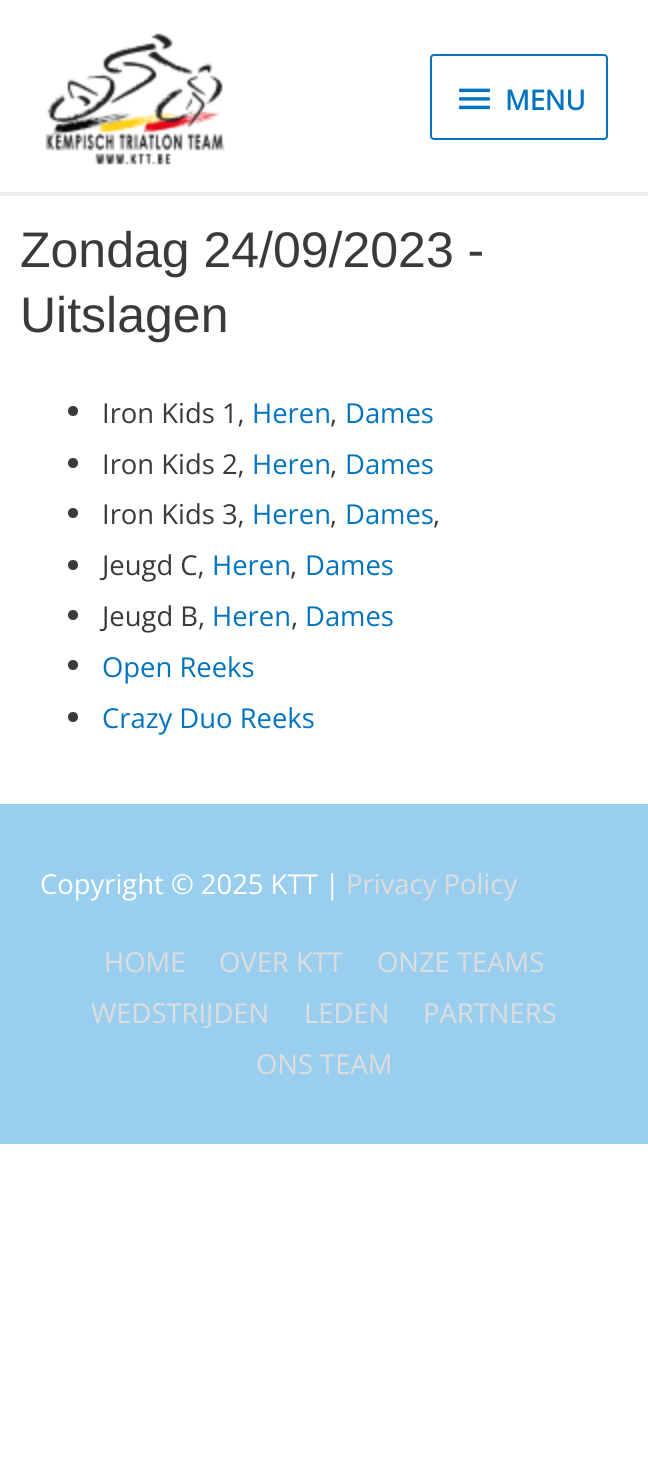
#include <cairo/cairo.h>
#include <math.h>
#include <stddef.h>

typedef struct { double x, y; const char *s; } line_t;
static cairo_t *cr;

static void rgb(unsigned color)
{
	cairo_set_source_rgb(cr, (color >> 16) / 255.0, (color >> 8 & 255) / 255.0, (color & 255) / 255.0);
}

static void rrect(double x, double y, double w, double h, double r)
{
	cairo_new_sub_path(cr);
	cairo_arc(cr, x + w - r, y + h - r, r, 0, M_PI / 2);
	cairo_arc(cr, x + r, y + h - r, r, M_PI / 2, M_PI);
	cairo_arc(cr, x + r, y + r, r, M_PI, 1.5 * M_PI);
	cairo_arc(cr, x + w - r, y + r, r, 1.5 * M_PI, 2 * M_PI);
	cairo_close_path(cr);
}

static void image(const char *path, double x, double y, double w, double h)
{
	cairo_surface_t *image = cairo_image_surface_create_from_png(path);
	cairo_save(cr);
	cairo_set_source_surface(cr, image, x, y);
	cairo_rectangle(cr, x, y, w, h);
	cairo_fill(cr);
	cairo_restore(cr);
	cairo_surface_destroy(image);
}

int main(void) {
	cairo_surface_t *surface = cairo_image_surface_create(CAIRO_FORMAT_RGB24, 648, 1473);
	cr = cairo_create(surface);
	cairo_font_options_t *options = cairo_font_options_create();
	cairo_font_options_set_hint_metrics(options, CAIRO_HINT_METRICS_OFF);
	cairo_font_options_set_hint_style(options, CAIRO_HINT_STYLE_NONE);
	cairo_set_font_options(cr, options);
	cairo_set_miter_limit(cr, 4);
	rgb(0xffffff);
	cairo_paint(cr);
	rgb(0xededed);
	cairo_rectangle(cr, 0, 192, 648, 4);
	cairo_fill(cr);
	image("img/1.png", 45, 33, 180, 132);
	rrect(431, 55, 176, 84, 3);
	rgb(0x0274be);
	cairo_stroke(cr);
	image("img/2.png", 459, 88, 31, 22);
	rgb(0x3a3a3a);
	cairo_arc(cr, 73, 411, 5, 0, 2 * M_PI);
	cairo_fill(cr);
	cairo_arc(cr, 73, 463, 5, 0, 2 * M_PI);
	cairo_fill(cr);
	cairo_arc(cr, 73, 513, 5, 0, 2 * M_PI);
	cairo_fill(cr);
	cairo_arc(cr, 73, 565, 5, 0, 2 * M_PI);
	cairo_fill(cr);
	cairo_arc(cr, 73, 615, 5, 0, 2 * M_PI);
	cairo_fill(cr);
	cairo_arc(cr, 73, 665, 5, 0, 2 * M_PI);
	cairo_fill(cr);
	cairo_arc(cr, 73, 717, 5, 0, 2 * M_PI);
	cairo_fill(cr);
	rgb(0x99ceef);
	cairo_rectangle(cr, 0, 804, 648, 340);
	cairo_fill(cr);
	cairo_select_font_face(cr, "Open Sans", CAIRO_FONT_SLANT_NORMAL, CAIRO_FONT_WEIGHT_BOLD);
	cairo_set_font_size(cr, 27.4);
	rgb(0x0274be);
	cairo_move_to(cr, 505, 110);
	cairo_show_text(cr, "MENU");
	cairo_select_font_face(cr, "Liberation Sans", CAIRO_FONT_SLANT_NORMAL, CAIRO_FONT_WEIGHT_NORMAL);
	cairo_set_font_size(cr, 50);
	rgb(0x3a3a3a);
	cairo_move_to(cr, 20, 267);
	cairo_show_text(cr, "Zondag 24/09/2023 -");
	cairo_move_to(cr, 20, 332);
	cairo_show_text(cr, "Uitslagen");
	cairo_select_font_face(cr, "Open Sans", CAIRO_FONT_SLANT_NORMAL, CAIRO_FONT_WEIGHT_NORMAL);
	cairo_set_font_size(cr, 27.4);
	cairo_move_to(cr, 102, 423);
	cairo_show_text(cr, "Iron Kids 1,");
	rgb(0x0274be);
	cairo_move_to(cr, 252, 423);
	cairo_show_text(cr, "Heren");
	cairo_move_to(cr, 345, 423);
	cairo_show_text(cr, "Dames");
	rgb(0x3a3a3a);
	cairo_move_to(cr, 330, 423);
	cairo_show_text(cr, ",");
	cairo_move_to(cr, 102, 474);
	cairo_show_text(cr, "Iron Kids 2,");
	rgb(0x0274be);
	cairo_move_to(cr, 252, 474);
	cairo_show_text(cr, "Heren");
	cairo_move_to(cr, 345, 474);
	cairo_show_text(cr, "Dames");
	rgb(0x3a3a3a);
	cairo_move_to(cr, 330, 474);
	cairo_show_text(cr, ",");
	cairo_move_to(cr, 102, 524);
	cairo_show_text(cr, "Iron Kids 3,");
	rgb(0x0274be);
	cairo_move_to(cr, 252, 524);
	cairo_show_text(cr, "Heren");
	cairo_move_to(cr, 345, 524);
	cairo_show_text(cr, "Dames");
	rgb(0x3a3a3a);
	{
		static const line_t items[] = {
			{330, 524, ","},
			{433, 524, ","},
			{102, 575, "Jeugd C,"},
		};
		for (size_t i = 0; i < sizeof items / sizeof *items; i++) {
			cairo_move_to(cr, items[i].x, items[i].y);
			cairo_show_text(cr, items[i].s);
		}
	}
	rgb(0x0274be);
	cairo_move_to(cr, 212, 575);
	cairo_show_text(cr, "Heren");
	cairo_move_to(cr, 305, 575);
	cairo_show_text(cr, "Dames");
	rgb(0x3a3a3a);
	cairo_move_to(cr, 290, 575);
	cairo_show_text(cr, ",");
	cairo_move_to(cr, 102, 626);
	cairo_show_text(cr, "Jeugd B,");
	rgb(0x0274be);
	cairo_move_to(cr, 212, 626);
	cairo_show_text(cr, "Heren");
	cairo_move_to(cr, 305, 626);
	cairo_show_text(cr, "Dames");
	rgb(0x3a3a3a);
	cairo_move_to(cr, 291, 626);
	cairo_show_text(cr, ",");
	rgb(0x0274be);
	cairo_move_to(cr, 102, 677);
	cairo_show_text(cr, "Open Reeks");
	cairo_move_to(cr, 102, 728);
	cairo_show_text(cr, "Crazy Duo Reeks");
	rgb(0xffffff);
	cairo_move_to(cr, 40, 894);
	cairo_show_text(cr, "Copyright © 2025 KTT |");
	rgb(0xdddddd);
	{
		static const line_t items[] = {
			{346, 894, "Privacy Policy"},
			{104, 972, "HOME"},
			{219, 972, "OVER KTT"},
			{377, 972, "ONZE TEAMS"},
			{91, 1023, "WEDSTRIJDEN"},
			{304, 1023, "LEDEN"},
			{423, 1023, "PARTNERS"},
			{256, 1074, "ONS TEAM"},
		};
		for (size_t i = 0; i < sizeof items / sizeof *items; i++) {
			cairo_move_to(cr, items[i].x, items[i].y);
			cairo_show_text(cr, items[i].s);
		}
	}
	cairo_surface_write_to_png(surface, "page.png");
	cairo_font_options_destroy(options);
	cairo_destroy(cr);
	cairo_surface_destroy(surface);
	return 0;
}
